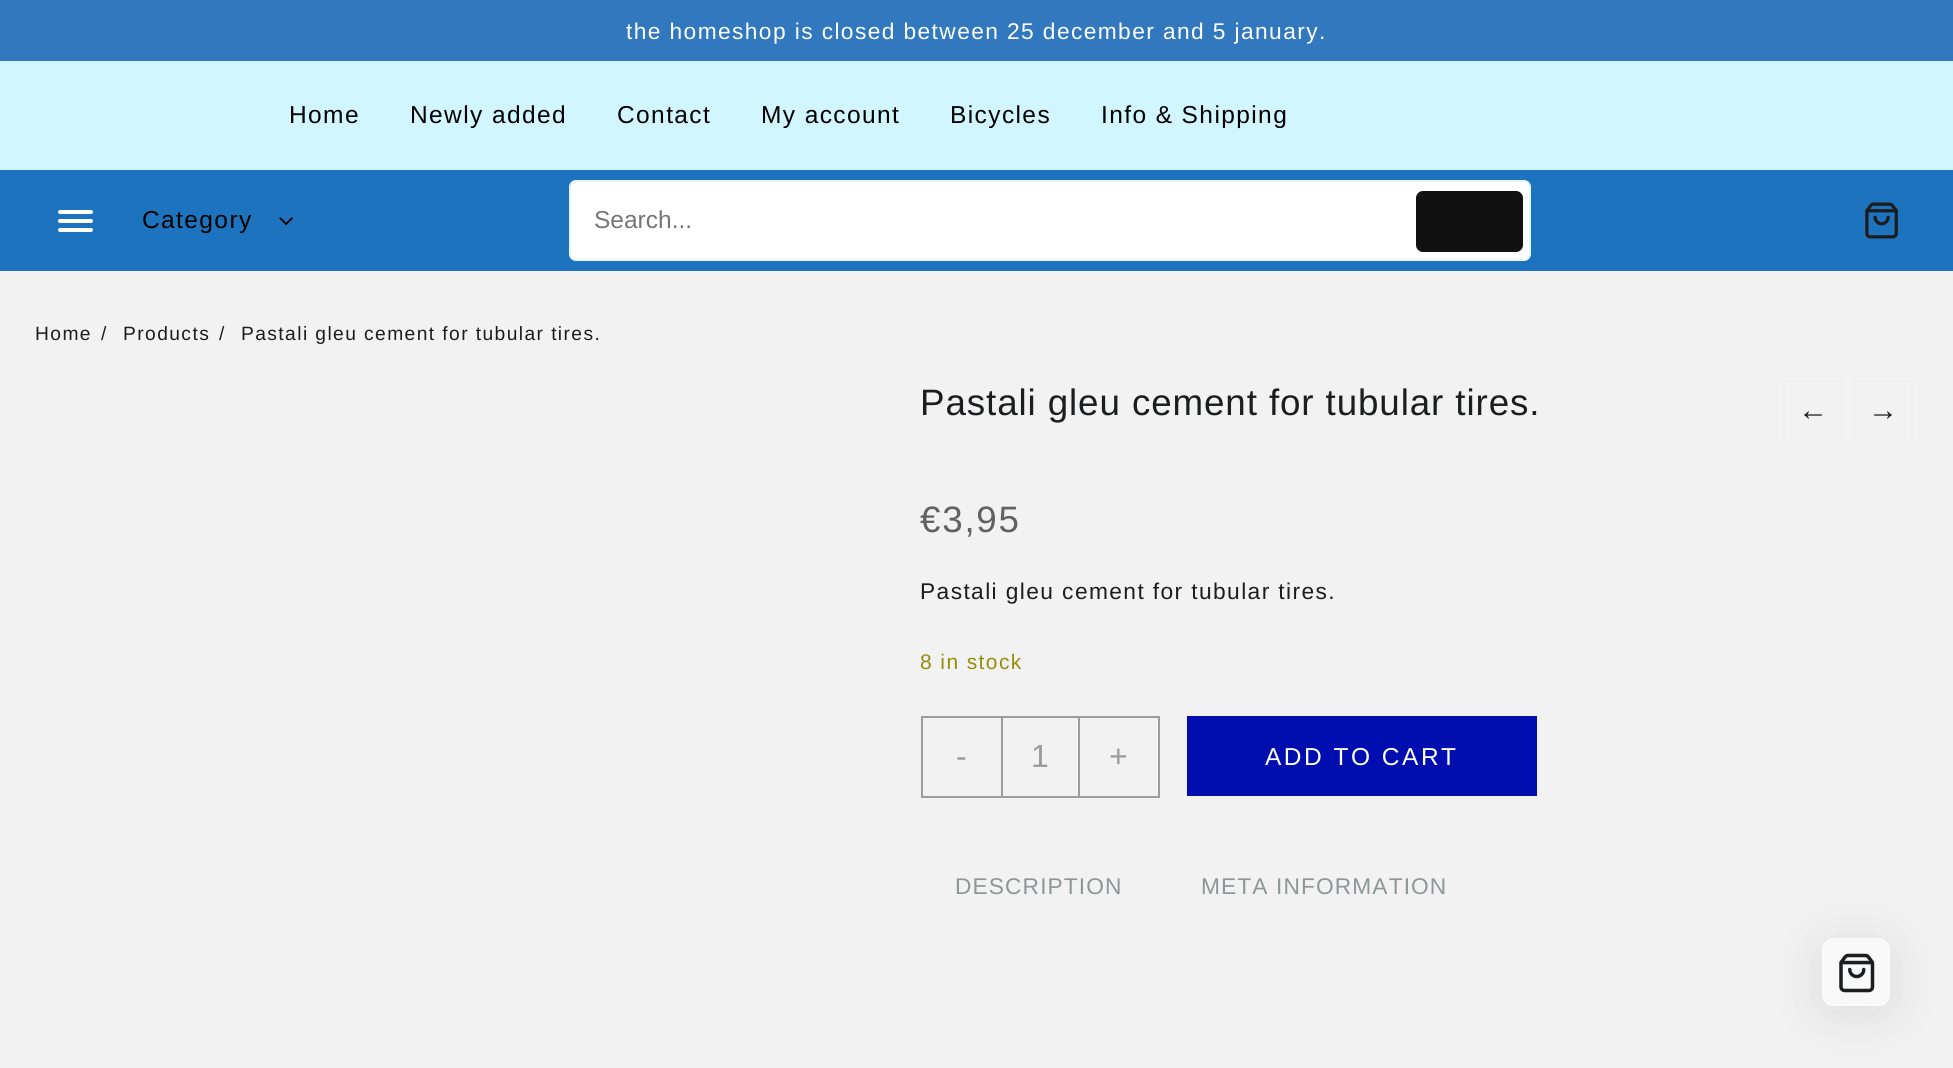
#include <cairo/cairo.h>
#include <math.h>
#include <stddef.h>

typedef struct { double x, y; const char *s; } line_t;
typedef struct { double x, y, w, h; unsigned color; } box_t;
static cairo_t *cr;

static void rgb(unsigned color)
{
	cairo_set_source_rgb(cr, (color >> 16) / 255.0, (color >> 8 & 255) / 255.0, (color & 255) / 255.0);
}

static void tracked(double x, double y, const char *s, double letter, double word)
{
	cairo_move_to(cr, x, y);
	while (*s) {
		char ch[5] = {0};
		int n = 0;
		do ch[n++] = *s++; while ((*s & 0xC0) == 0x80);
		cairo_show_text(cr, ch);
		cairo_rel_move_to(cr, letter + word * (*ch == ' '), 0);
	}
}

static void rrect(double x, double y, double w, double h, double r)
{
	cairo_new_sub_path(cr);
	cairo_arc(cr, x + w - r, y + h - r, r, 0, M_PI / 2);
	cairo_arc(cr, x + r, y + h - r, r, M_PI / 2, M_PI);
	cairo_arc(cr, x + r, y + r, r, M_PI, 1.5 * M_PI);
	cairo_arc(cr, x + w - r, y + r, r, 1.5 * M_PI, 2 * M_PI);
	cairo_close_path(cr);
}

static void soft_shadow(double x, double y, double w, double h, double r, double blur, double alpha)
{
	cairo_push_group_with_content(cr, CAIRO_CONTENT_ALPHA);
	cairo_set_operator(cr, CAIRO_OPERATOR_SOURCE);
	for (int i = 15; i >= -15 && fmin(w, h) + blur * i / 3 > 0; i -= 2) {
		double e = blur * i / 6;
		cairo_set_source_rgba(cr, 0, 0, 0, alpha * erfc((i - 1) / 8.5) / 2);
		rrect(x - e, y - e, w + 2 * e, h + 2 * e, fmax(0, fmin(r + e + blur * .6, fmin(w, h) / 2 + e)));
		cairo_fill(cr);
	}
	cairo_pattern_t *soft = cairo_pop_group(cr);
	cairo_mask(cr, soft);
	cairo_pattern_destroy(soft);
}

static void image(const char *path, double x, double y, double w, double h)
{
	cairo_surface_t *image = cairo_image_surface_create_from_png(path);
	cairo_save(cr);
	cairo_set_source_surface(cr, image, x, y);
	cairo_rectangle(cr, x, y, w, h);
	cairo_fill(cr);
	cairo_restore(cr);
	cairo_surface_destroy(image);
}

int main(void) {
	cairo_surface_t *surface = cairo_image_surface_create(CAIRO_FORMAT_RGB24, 1953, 1068);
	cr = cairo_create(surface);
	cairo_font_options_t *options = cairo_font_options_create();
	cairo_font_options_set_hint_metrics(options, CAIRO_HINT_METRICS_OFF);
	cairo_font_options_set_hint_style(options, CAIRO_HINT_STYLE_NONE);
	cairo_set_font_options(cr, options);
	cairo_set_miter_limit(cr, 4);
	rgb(0xf2f2f2);
	cairo_paint(cr);
	{
		static const box_t items[] = {
			{0, 0, 1953, 61, 0x3178bf},
			{0, 61, 1953, 109, 0xd1f6ff},
			{0, 170, 1953, 101, 0x1e73be},
		};
		for (size_t i = 0; i < sizeof items / sizeof *items; i++) {
			rgb(items[i].color);
			cairo_rectangle(cr, items[i].x, items[i].y, items[i].w, items[i].h);
			cairo_fill(cr);
		}
	}
	rgb(0xffffff);
	rrect(58, 210, 35, 4, 2);
	cairo_fill(cr);
	rrect(58, 219, 35, 4, 2);
	cairo_fill(cr);
	rrect(58, 228, 35, 4, 2);
	cairo_fill(cr);
	image("img/1.png", 279, 217, 14, 9);
	rrect(570, 181, 960, 79, 6);
	cairo_fill_preserve(cr);
	rgb(0xe7f5ff);
	cairo_stroke(cr);
	rgb(0x111111);
	rrect(1416, 191, 107, 61, 7);
	cairo_fill(cr);
	image("img/2.png", 1865, 202, 33, 37);
	cairo_rectangle(cr, 1784, 381, 58, 59);
	rgb(0xeeeeee);
	cairo_stroke(cr);
	cairo_rectangle(cr, 1854, 381, 58, 59);
	cairo_stroke(cr);
	cairo_rectangle(cr, 922, 717, 237, 80);
	rgb(0x9c9c9c);
	cairo_stroke(cr);
	{
		static const box_t items[] = {
			{1078, 718, 2, 78, 0x9c9c9c},
			{1001, 718, 2, 78, 0x9c9c9c},
			{1187, 716, 350, 80, 0x000eaf},
		};
		for (size_t i = 0; i < sizeof items / sizeof *items; i++) {
			rgb(items[i].color);
			cairo_rectangle(cr, items[i].x, items[i].y, items[i].w, items[i].h);
			cairo_fill(cr);
		}
	}
	rgb(0x000000);
	soft_shadow(1822, 945, 68, 68, 11, 26, 0.1);
	rgb(0xf8f8f8);
	rrect(1823, 939, 66, 66, 10);
	cairo_fill_preserve(cr);
	rgb(0xfafafa);
	cairo_stroke(cr);
	image("img/3.png", 1839, 953, 36, 40);
	cairo_select_font_face(cr, "Liberation Sans", CAIRO_FONT_SLANT_NORMAL, CAIRO_FONT_WEIGHT_NORMAL);
	cairo_set_font_size(cr, 22.75);
	rgb(0xffffff);
	tracked(626, 39, "the homeshop is closed between 25 december and 5 january.", 1.4, 0);
	cairo_set_font_size(cr, 24.5);
	rgb(0x000000);
	{
		static const line_t items[] = {
			{289, 123, "Home"},
			{410, 123, "Newly added"},
			{617, 123, "Contact"},
			{761, 123, "My account"},
			{950, 123, "Bicycles"},
			{1101, 123, "Info & Shipping"},
			{142, 228, "Category"},
		};
		for (size_t i = 0; i < sizeof items / sizeof *items; i++) {
			tracked(items[i].x, items[i].y, items[i].s, 1.4, 0);
		}
	}
	rgb(0x757575);
	cairo_move_to(cr, 594, 228);
	cairo_show_text(cr, "Search...");
	cairo_set_font_size(cr, 19.25);
	rgb(0x1c1d1e);
	{
		static const line_t items[] = {
			{35, 340, "Home"},
			{101, 340, "/"},
			{123, 340, "Products"},
			{219, 340, "/"},
			{241, 340, "Pastali gleu cement for tubular tires."},
		};
		for (size_t i = 0; i < sizeof items / sizeof *items; i++) {
			tracked(items[i].x, items[i].y, items[i].s, 1.4, 0);
		}
	}
	cairo_set_font_size(cr, 36.75);
	tracked(920, 415, "Pastali gleu cement for tubular tires.", 0.9, 0);
	cairo_set_font_size(cr, 30);
	tracked(1798, 420, "←", 1.4, 0);
	tracked(1868, 420, "→", 1.4, 0);
	cairo_set_font_size(cr, 36.75);
	rgb(0x626060);
	tracked(920, 532, "€3,95", 1.75, 0);
	cairo_set_font_size(cr, 22.75);
	rgb(0x1c1d1e);
	tracked(920, 599, "Pastali gleu cement for tubular tires.", 1.4, 0);
	cairo_set_font_size(cr, 21);
	rgb(0x958e09);
	tracked(920, 669, "8 in stock", 1.4, 0);
	cairo_set_font_size(cr, 32);
	rgb(0x9c9c9c);
	{
		static const line_t items[] = {
			{956, 767, "-"},
			{1031, 767, "1"},
			{1109, 767, "+"},
		};
		for (size_t i = 0; i < sizeof items / sizeof *items; i++) {
			cairo_move_to(cr, items[i].x, items[i].y);
			cairo_show_text(cr, items[i].s);
		}
	}
	cairo_set_font_size(cr, 24.5);
	rgb(0xffffff);
	tracked(1265, 765, "ADD TO CART", 2.5, 0);
	cairo_set_font_size(cr, 22.75);
	rgb(0x8f9696);
	tracked(955, 894, "DESCRIPTION", 1.1, 0);
	tracked(1201, 894, "META INFORMATION", 1.1, 0);
	cairo_surface_write_to_png(surface, "page.png");
	cairo_font_options_destroy(options);
	cairo_destroy(cr);
	cairo_surface_destroy(surface);
	return 0;
}
